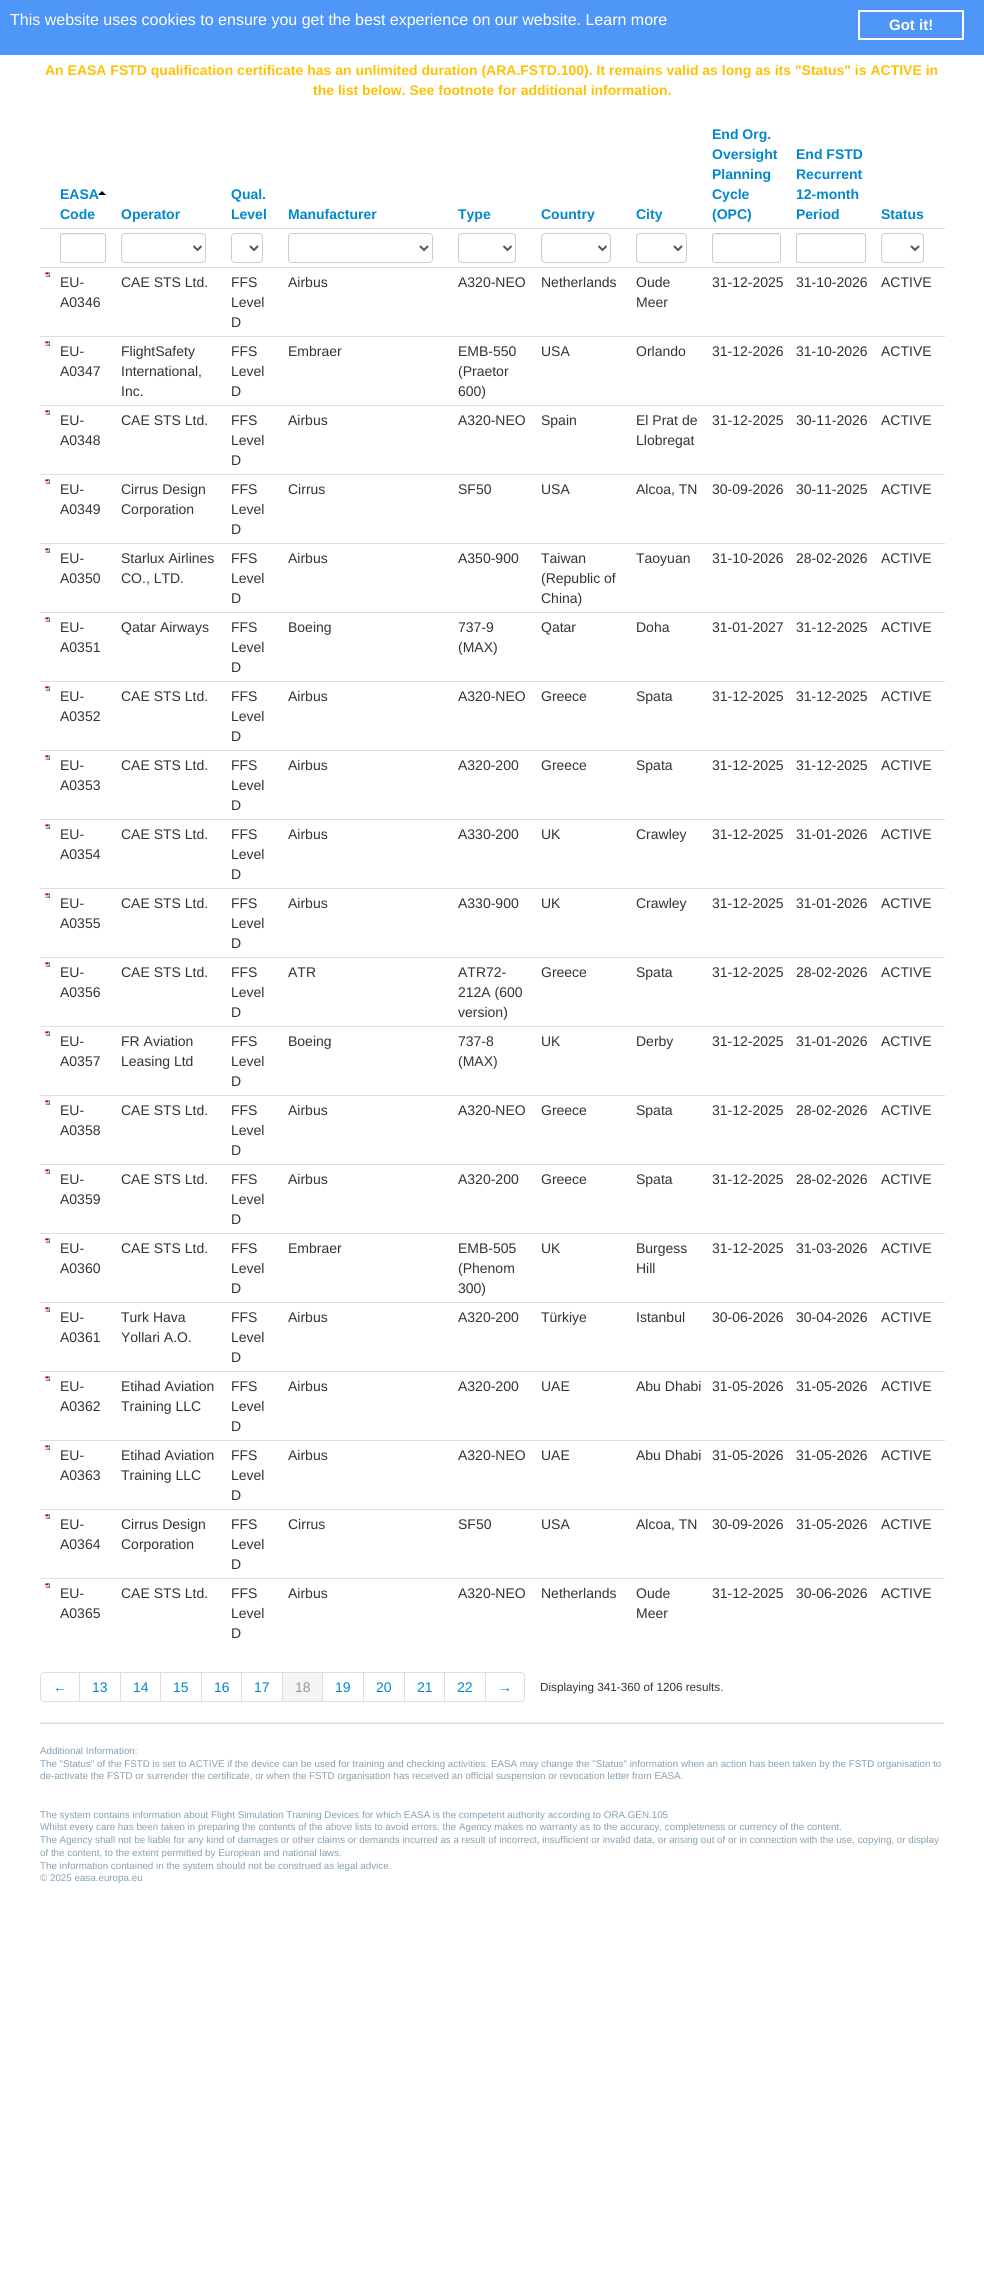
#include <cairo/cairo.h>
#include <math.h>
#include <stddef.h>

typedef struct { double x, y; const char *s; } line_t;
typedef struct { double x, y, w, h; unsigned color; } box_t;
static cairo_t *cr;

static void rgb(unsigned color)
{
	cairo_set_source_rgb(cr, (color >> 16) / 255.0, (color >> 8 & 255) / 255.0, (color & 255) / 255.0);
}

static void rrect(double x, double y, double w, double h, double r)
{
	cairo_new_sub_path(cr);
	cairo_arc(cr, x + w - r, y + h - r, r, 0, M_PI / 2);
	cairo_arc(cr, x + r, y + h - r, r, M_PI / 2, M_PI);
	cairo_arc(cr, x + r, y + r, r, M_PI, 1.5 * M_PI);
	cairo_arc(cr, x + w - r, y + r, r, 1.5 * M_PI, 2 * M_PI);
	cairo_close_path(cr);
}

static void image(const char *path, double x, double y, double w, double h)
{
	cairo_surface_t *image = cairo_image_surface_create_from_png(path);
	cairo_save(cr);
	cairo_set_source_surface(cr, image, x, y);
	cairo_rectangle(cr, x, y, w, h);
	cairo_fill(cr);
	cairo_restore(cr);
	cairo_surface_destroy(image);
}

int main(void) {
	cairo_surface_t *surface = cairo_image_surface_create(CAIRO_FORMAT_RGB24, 984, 2289);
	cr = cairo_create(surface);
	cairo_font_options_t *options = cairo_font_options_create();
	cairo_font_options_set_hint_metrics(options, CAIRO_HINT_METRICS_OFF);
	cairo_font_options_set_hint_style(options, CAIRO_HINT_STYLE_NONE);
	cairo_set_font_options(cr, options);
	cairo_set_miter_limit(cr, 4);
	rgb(0xffffff);
	cairo_paint(cr);
	rgb(0x4f96f9);
	cairo_rectangle(cr, 0, 0, 984, 55);
	cairo_fill(cr);
	cairo_rectangle(cr, 859, 11, 104, 28);
	rgb(0xffffff);
	cairo_stroke(cr);
	rgb(0xdddddd);
	cairo_rectangle(cr, 40, 228, 905, 1);
	cairo_fill(cr);
	rrect(881.5, 233.5, 42, 29, 3.5);
	rgb(0xcccccc);
	cairo_set_line_width(cr, 1);
	cairo_stroke(cr);
	cairo_new_path(cr);
	cairo_move_to(cr, 911, 246);
	cairo_line_to(cr, 915, 250);
	cairo_line_to(cr, 919, 246);
	rgb(0x555555);
	cairo_set_line_width(cr, 2);
	cairo_stroke(cr);
	rgb(0xececec);
	cairo_new_path(cr);
	cairo_move_to(cr, 63, 235);
	cairo_line_to(cr, 103, 235);
	cairo_curve_to(cr, 104, 235, 105, 236, 105, 237);
	cairo_curve_to(cr, 105, 232, 100, 234, 96, 234);
	cairo_line_to(cr, 70, 234);
	cairo_curve_to(cr, 66, 234, 61, 232, 61, 237);
	cairo_curve_to(cr, 61, 236, 62, 235, 63, 235);
	cairo_close_path(cr);
	cairo_fill(cr);
	rrect(60.5, 233.5, 45, 29, 2.5);
	rgb(0xcccccc);
	cairo_set_line_width(cr, 1);
	cairo_stroke(cr);
	rrect(121.5, 233.5, 84, 29, 3.5);
	cairo_stroke(cr);
	cairo_new_path(cr);
	cairo_move_to(cr, 193.5, 246);
	cairo_line_to(cr, 197.5, 250);
	cairo_line_to(cr, 201.5, 246);
	rgb(0x555555);
	cairo_set_line_width(cr, 2);
	cairo_stroke(cr);
	rrect(231.5, 233.5, 31, 29, 3.5);
	rgb(0xcccccc);
	cairo_set_line_width(cr, 1);
	cairo_stroke(cr);
	cairo_new_path(cr);
	cairo_move_to(cr, 250, 246);
	cairo_line_to(cr, 254, 250);
	cairo_line_to(cr, 258, 246);
	rgb(0x555555);
	cairo_set_line_width(cr, 2);
	cairo_stroke(cr);
	rrect(288.5, 233.5, 144, 29, 3.5);
	rgb(0xcccccc);
	cairo_set_line_width(cr, 1);
	cairo_stroke(cr);
	cairo_new_path(cr);
	cairo_move_to(cr, 420, 246);
	cairo_line_to(cr, 424, 250);
	cairo_line_to(cr, 428, 246);
	rgb(0x555555);
	cairo_set_line_width(cr, 2);
	cairo_stroke(cr);
	rrect(458.5, 233.5, 57, 29, 3.5);
	rgb(0xcccccc);
	cairo_set_line_width(cr, 1);
	cairo_stroke(cr);
	cairo_new_path(cr);
	cairo_move_to(cr, 503.5, 246);
	cairo_line_to(cr, 507.5, 250);
	cairo_line_to(cr, 511.5, 246);
	rgb(0x555555);
	cairo_set_line_width(cr, 2);
	cairo_stroke(cr);
	rrect(541.5, 233.5, 69, 29, 3.5);
	rgb(0xcccccc);
	cairo_set_line_width(cr, 1);
	cairo_stroke(cr);
	cairo_new_path(cr);
	cairo_move_to(cr, 598.5, 246);
	cairo_line_to(cr, 602.5, 250);
	cairo_line_to(cr, 606.5, 246);
	rgb(0x555555);
	cairo_set_line_width(cr, 2);
	cairo_stroke(cr);
	rrect(636.5, 233.5, 50, 29, 3.5);
	rgb(0xcccccc);
	cairo_set_line_width(cr, 1);
	cairo_stroke(cr);
	cairo_new_path(cr);
	cairo_move_to(cr, 674, 246);
	cairo_line_to(cr, 678, 250);
	cairo_line_to(cr, 682, 246);
	rgb(0x555555);
	cairo_set_line_width(cr, 2);
	cairo_stroke(cr);
	rgb(0xececec);
	cairo_new_path(cr);
	cairo_move_to(cr, 715, 235);
	cairo_line_to(cr, 779, 235);
	cairo_line_to(cr, 780, 237);
	cairo_curve_to(cr, 780, 231, 771, 234, 768, 234);
	cairo_line_to(cr, 726, 234);
	cairo_curve_to(cr, 722, 234, 713, 231, 713, 237);
	cairo_curve_to(cr, 713, 236, 714, 235, 715, 235);
	cairo_close_path(cr);
	cairo_fill(cr);
	rrect(712.5, 233.5, 68, 29, 2.5);
	rgb(0xcccccc);
	cairo_set_line_width(cr, 1);
	cairo_stroke(cr);
	rgb(0xececec);
	cairo_new_path(cr);
	cairo_move_to(cr, 799, 235);
	cairo_line_to(cr, 864, 235);
	cairo_line_to(cr, 865, 237);
	cairo_curve_to(cr, 865, 231, 856, 234, 852, 234);
	cairo_line_to(cr, 810, 234);
	cairo_curve_to(cr, 806, 234, 797, 231, 797, 237);
	cairo_curve_to(cr, 797, 236, 798, 235, 799, 235);
	cairo_close_path(cr);
	cairo_fill(cr);
	rrect(796.5, 233.5, 69, 29, 2.5);
	rgb(0xcccccc);
	cairo_stroke(cr);
	image("img/1.png", 45, 272, 5, 5);
	rgb(0xdddddd);
	cairo_rectangle(cr, 40, 267, 905, 1);
	cairo_fill(cr);
	image("img/2.png", 45, 341, 5, 5);
	cairo_rectangle(cr, 40, 336, 905, 1);
	cairo_fill(cr);
	image("img/2.png", 45, 410, 5, 5);
	cairo_rectangle(cr, 40, 405, 905, 1);
	cairo_fill(cr);
	image("img/2.png", 45, 479, 5, 5);
	cairo_rectangle(cr, 40, 474, 905, 1);
	cairo_fill(cr);
	image("img/2.png", 45, 548, 5, 5);
	cairo_rectangle(cr, 40, 543, 905, 1);
	cairo_fill(cr);
	image("img/2.png", 45, 617, 5, 5);
	cairo_rectangle(cr, 40, 612, 905, 1);
	cairo_fill(cr);
	image("img/2.png", 45, 686, 5, 5);
	cairo_rectangle(cr, 40, 681, 905, 1);
	cairo_fill(cr);
	image("img/2.png", 45, 755, 5, 5);
	cairo_rectangle(cr, 40, 750, 905, 1);
	cairo_fill(cr);
	image("img/2.png", 45, 824, 5, 5);
	cairo_rectangle(cr, 40, 819, 905, 1);
	cairo_fill(cr);
	image("img/2.png", 45, 893, 5, 5);
	cairo_rectangle(cr, 40, 888, 905, 1);
	cairo_fill(cr);
	image("img/2.png", 45, 962, 5, 5);
	cairo_rectangle(cr, 40, 957, 905, 1);
	cairo_fill(cr);
	image("img/2.png", 45, 1031, 5, 5);
	cairo_rectangle(cr, 40, 1026, 905, 1);
	cairo_fill(cr);
	image("img/2.png", 45, 1100, 5, 5);
	cairo_rectangle(cr, 40, 1095, 905, 1);
	cairo_fill(cr);
	image("img/2.png", 45, 1169, 5, 5);
	cairo_rectangle(cr, 40, 1164, 905, 1);
	cairo_fill(cr);
	image("img/2.png", 45, 1238, 5, 5);
	cairo_rectangle(cr, 40, 1233, 905, 1);
	cairo_fill(cr);
	image("img/2.png", 45, 1307, 5, 5);
	cairo_rectangle(cr, 40, 1302, 905, 1);
	cairo_fill(cr);
	image("img/2.png", 45, 1376, 5, 5);
	cairo_rectangle(cr, 40, 1371, 905, 1);
	cairo_fill(cr);
	image("img/2.png", 45, 1445, 5, 5);
	cairo_rectangle(cr, 40, 1440, 905, 1);
	cairo_fill(cr);
	image("img/2.png", 45, 1514, 5, 5);
	cairo_rectangle(cr, 40, 1509, 905, 1);
	cairo_fill(cr);
	image("img/2.png", 45, 1583, 5, 5);
	cairo_rectangle(cr, 40, 1578, 905, 1);
	cairo_fill(cr);
	cairo_new_path(cr);
	cairo_move_to(cr, 44, 1672.5);
	cairo_line_to(cr, 79.5, 1672.5);
	cairo_line_to(cr, 79.5, 1701.5);
	cairo_line_to(cr, 44, 1701.5);
	cairo_curve_to(cr, 42, 1701.5, 40.5, 1700, 40.5, 1698);
	cairo_line_to(cr, 40.5, 1676);
	cairo_curve_to(cr, 40.5, 1674, 42, 1672.5, 44, 1672.5);
	cairo_close_path(cr);
	cairo_stroke(cr);
	{
		static const box_t items[] = {
			{80, 1672, 406, 1, 0xdddddd},
			{120, 1672, 1, 30, 0xdddddd},
			{80, 1701, 41, 1, 0xdddddd},
			{160, 1672, 1, 30, 0xdddddd},
			{121, 1701, 40, 1, 0xdddddd},
			{201, 1672, 1, 30, 0xdddddd},
			{161, 1701, 41, 1, 0xdddddd},
			{241, 1672, 1, 30, 0xdddddd},
			{202, 1701, 40, 1, 0xdddddd},
			{282, 1672, 1, 30, 0xdddddd},
			{242, 1701, 41, 1, 0xdddddd},
			{283, 1673, 39, 28, 0xf5f5f5},
			{322, 1672, 1, 30, 0xdddddd},
			{283, 1701, 40, 1, 0xdddddd},
			{363, 1672, 1, 30, 0xdddddd},
			{323, 1701, 41, 1, 0xdddddd},
			{404, 1672, 1, 30, 0xdddddd},
			{364, 1701, 41, 1, 0xdddddd},
			{444, 1672, 1, 30, 0xdddddd},
			{405, 1701, 40, 1, 0xdddddd},
			{485, 1672, 1, 30, 0xdddddd},
			{445, 1701, 41, 1, 0xdddddd},
		};
		for (size_t i = 0; i < sizeof items / sizeof *items; i++) {
			rgb(items[i].color);
			cairo_rectangle(cr, items[i].x, items[i].y, items[i].w, items[i].h);
			cairo_fill(cr);
		}
	}
	cairo_set_fill_rule(cr, CAIRO_FILL_RULE_EVEN_ODD);
	cairo_new_path(cr);
	cairo_move_to(cr, 486, 1672);
	cairo_line_to(cr, 521, 1672);
	cairo_curve_to(cr, 523, 1672, 525, 1674, 525, 1676);
	cairo_line_to(cr, 525, 1698);
	cairo_curve_to(cr, 525, 1700, 523, 1702, 521, 1702);
	cairo_line_to(cr, 486, 1702);
	cairo_close_path(cr);
	cairo_move_to(cr, 486, 1673);
	cairo_line_to(cr, 521, 1673);
	cairo_curve_to(cr, 522.5, 1673, 524, 1674.5, 524, 1676);
	cairo_line_to(cr, 524, 1698);
	cairo_curve_to(cr, 524, 1699.5, 522.5, 1701, 521, 1701);
	cairo_line_to(cr, 486, 1701);
	cairo_close_path(cr);
	cairo_fill(cr);
	cairo_rectangle(cr, 40, 1723, 904, 1);
	cairo_fill(cr);
	rgb(0xeeeeee);
	cairo_rectangle(cr, 40, 1722, 904, 1);
	cairo_fill(cr);
	cairo_select_font_face(cr, "Liberation Sans", CAIRO_FONT_SLANT_NORMAL, CAIRO_FONT_WEIGHT_NORMAL);
	cairo_set_font_size(cr, 16);
	rgb(0xffffff);
	cairo_move_to(cr, 10, 25);
	cairo_show_text(cr, "This website uses cookies to ensure you get the best experience on our website. Learn more");
	cairo_select_font_face(cr, "Liberation Sans", CAIRO_FONT_SLANT_NORMAL, CAIRO_FONT_WEIGHT_BOLD);
	cairo_set_font_size(cr, 15);
	cairo_move_to(cr, 889, 30);
	cairo_show_text(cr, "Got it!");
	cairo_set_font_size(cr, 14);
	rgb(0xffc107);
	cairo_move_to(cr, 45, 75);
	cairo_show_text(cr, "An EASA FSTD qualification certificate has an unlimited duration (ARA.FSTD.100). It remains valid as long as its \"Status\" is ACTIVE in");
	cairo_move_to(cr, 313, 95);
	cairo_show_text(cr, "the list below. See footnote for additional information.");
	rgb(0x0088cc);
	cairo_move_to(cr, 60, 199);
	cairo_show_text(cr, "EASA");
	rgb(0x000000);
	cairo_set_fill_rule(cr, CAIRO_FILL_RULE_WINDING);
	cairo_new_path(cr);
	cairo_move_to(cr, 106, 195);
	cairo_line_to(cr, 98, 195);
	cairo_line_to(cr, 102, 191);
	cairo_close_path(cr);
	cairo_fill(cr);
	rgb(0x0088cc);
	{
		static const line_t items[] = {
			{60, 219, "Code"},
			{121, 219, "Operator"},
			{231, 199, "Qual."},
			{231, 219, "Level"},
			{288, 219, "Manufacturer"},
			{458, 219, "Type"},
			{541, 219, "Country"},
			{636, 219, "City"},
			{712, 139, "End Org."},
			{712, 159, "Oversight"},
			{712, 179, "Planning"},
			{712, 199, "Cycle"},
			{712, 219, "(OPC)"},
			{796, 159, "End FSTD"},
			{796, 179, "Recurrent"},
			{796, 199, "12-month"},
			{796, 219, "Period"},
			{881, 219, "Status"},
		};
		for (size_t i = 0; i < sizeof items / sizeof *items; i++) {
			cairo_move_to(cr, items[i].x, items[i].y);
			cairo_show_text(cr, items[i].s);
		}
	}
	cairo_select_font_face(cr, "Liberation Sans", CAIRO_FONT_SLANT_NORMAL, CAIRO_FONT_WEIGHT_NORMAL);
	rgb(0x333333);
	{
		static const line_t items[] = {
			{60, 287, "EU-"},
			{60, 307, "A0346"},
			{121, 287, "CAE STS Ltd."},
			{231, 287, "FFS"},
			{231, 307, "Level"},
			{231, 327, "D"},
			{288, 287, "Airbus"},
			{458, 287, "A320-NEO"},
			{541, 287, "Netherlands"},
			{636, 287, "Oude"},
			{636, 307, "Meer"},
			{712, 287, "31-12-2025"},
			{796, 287, "31-10-2026"},
			{881, 287, "ACTIVE"},
			{60, 356, "EU-"},
			{60, 376, "A0347"},
			{121, 356, "FlightSafety"},
			{121, 376, "International,"},
			{121, 396, "Inc."},
			{231, 356, "FFS"},
			{231, 376, "Level"},
			{231, 396, "D"},
			{288, 356, "Embraer"},
			{458, 356, "EMB-550"},
			{458, 376, "(Praetor"},
			{458, 396, "600)"},
			{541, 356, "USA"},
			{636, 356, "Orlando"},
			{712, 356, "31-12-2026"},
			{796, 356, "31-10-2026"},
			{881, 356, "ACTIVE"},
			{60, 425, "EU-"},
			{60, 445, "A0348"},
			{121, 425, "CAE STS Ltd."},
			{231, 425, "FFS"},
			{231, 445, "Level"},
			{231, 465, "D"},
			{288, 425, "Airbus"},
			{458, 425, "A320-NEO"},
			{541, 425, "Spain"},
			{636, 425, "El Prat de"},
			{636, 445, "Llobregat"},
			{712, 425, "31-12-2025"},
			{796, 425, "30-11-2026"},
			{881, 425, "ACTIVE"},
			{60, 494, "EU-"},
			{60, 514, "A0349"},
			{121, 494, "Cirrus Design"},
			{121, 514, "Corporation"},
			{231, 494, "FFS"},
			{231, 514, "Level"},
			{231, 534, "D"},
			{288, 494, "Cirrus"},
			{458, 494, "SF50"},
			{541, 494, "USA"},
			{636, 494, "Alcoa, TN"},
			{712, 494, "30-09-2026"},
			{796, 494, "30-11-2025"},
			{881, 494, "ACTIVE"},
			{60, 563, "EU-"},
			{60, 583, "A0350"},
			{121, 563, "Starlux Airlines"},
			{121, 583, "CO., LTD."},
			{231, 563, "FFS"},
			{231, 583, "Level"},
			{231, 603, "D"},
			{288, 563, "Airbus"},
			{458, 563, "A350-900"},
			{541, 563, "Taiwan"},
			{541, 583, "(Republic of"},
			{541, 603, "China)"},
			{636, 563, "Taoyuan"},
			{712, 563, "31-10-2026"},
			{796, 563, "28-02-2026"},
			{881, 563, "ACTIVE"},
			{60, 632, "EU-"},
			{60, 652, "A0351"},
			{121, 632, "Qatar Airways"},
			{231, 632, "FFS"},
			{231, 652, "Level"},
			{231, 672, "D"},
			{288, 632, "Boeing"},
			{458, 632, "737-9"},
			{458, 652, "(MAX)"},
			{541, 632, "Qatar"},
			{636, 632, "Doha"},
			{712, 632, "31-01-2027"},
			{796, 632, "31-12-2025"},
			{881, 632, "ACTIVE"},
			{60, 701, "EU-"},
			{60, 721, "A0352"},
			{121, 701, "CAE STS Ltd."},
			{231, 701, "FFS"},
			{231, 721, "Level"},
			{231, 741, "D"},
			{288, 701, "Airbus"},
			{458, 701, "A320-NEO"},
			{541, 701, "Greece"},
			{636, 701, "Spata"},
			{712, 701, "31-12-2025"},
			{796, 701, "31-12-2025"},
			{881, 701, "ACTIVE"},
			{60, 770, "EU-"},
			{60, 790, "A0353"},
			{121, 770, "CAE STS Ltd."},
			{231, 770, "FFS"},
			{231, 790, "Level"},
			{231, 810, "D"},
			{288, 770, "Airbus"},
			{458, 770, "A320-200"},
			{541, 770, "Greece"},
			{636, 770, "Spata"},
			{712, 770, "31-12-2025"},
			{796, 770, "31-12-2025"},
			{881, 770, "ACTIVE"},
			{60, 839, "EU-"},
			{60, 859, "A0354"},
			{121, 839, "CAE STS Ltd."},
			{231, 839, "FFS"},
			{231, 859, "Level"},
			{231, 879, "D"},
			{288, 839, "Airbus"},
			{458, 839, "A330-200"},
			{541, 839, "UK"},
			{636, 839, "Crawley"},
			{712, 839, "31-12-2025"},
			{796, 839, "31-01-2026"},
			{881, 839, "ACTIVE"},
			{60, 908, "EU-"},
			{60, 928, "A0355"},
			{121, 908, "CAE STS Ltd."},
			{231, 908, "FFS"},
			{231, 928, "Level"},
			{231, 948, "D"},
			{288, 908, "Airbus"},
			{458, 908, "A330-900"},
			{541, 908, "UK"},
			{636, 908, "Crawley"},
			{712, 908, "31-12-2025"},
			{796, 908, "31-01-2026"},
			{881, 908, "ACTIVE"},
			{60, 977, "EU-"},
			{60, 997, "A0356"},
			{121, 977, "CAE STS Ltd."},
			{231, 977, "FFS"},
			{231, 997, "Level"},
			{231, 1017, "D"},
			{288, 977, "ATR"},
			{458, 977, "ATR72-"},
			{458, 997, "212A (600"},
			{458, 1017, "version)"},
			{541, 977, "Greece"},
			{636, 977, "Spata"},
			{712, 977, "31-12-2025"},
			{796, 977, "28-02-2026"},
			{881, 977, "ACTIVE"},
			{60, 1046, "EU-"},
			{60, 1066, "A0357"},
			{121, 1046, "FR Aviation"},
			{121, 1066, "Leasing Ltd"},
			{231, 1046, "FFS"},
			{231, 1066, "Level"},
			{231, 1086, "D"},
			{288, 1046, "Boeing"},
			{458, 1046, "737-8"},
			{458, 1066, "(MAX)"},
			{541, 1046, "UK"},
			{636, 1046, "Derby"},
			{712, 1046, "31-12-2025"},
			{796, 1046, "31-01-2026"},
			{881, 1046, "ACTIVE"},
			{60, 1115, "EU-"},
			{60, 1135, "A0358"},
			{121, 1115, "CAE STS Ltd."},
			{231, 1115, "FFS"},
			{231, 1135, "Level"},
			{231, 1155, "D"},
			{288, 1115, "Airbus"},
			{458, 1115, "A320-NEO"},
			{541, 1115, "Greece"},
			{636, 1115, "Spata"},
			{712, 1115, "31-12-2025"},
			{796, 1115, "28-02-2026"},
			{881, 1115, "ACTIVE"},
			{60, 1184, "EU-"},
			{60, 1204, "A0359"},
			{121, 1184, "CAE STS Ltd."},
			{231, 1184, "FFS"},
			{231, 1204, "Level"},
			{231, 1224, "D"},
			{288, 1184, "Airbus"},
			{458, 1184, "A320-200"},
			{541, 1184, "Greece"},
			{636, 1184, "Spata"},
			{712, 1184, "31-12-2025"},
			{796, 1184, "28-02-2026"},
			{881, 1184, "ACTIVE"},
			{60, 1253, "EU-"},
			{60, 1273, "A0360"},
			{121, 1253, "CAE STS Ltd."},
			{231, 1253, "FFS"},
			{231, 1273, "Level"},
			{231, 1293, "D"},
			{288, 1253, "Embraer"},
			{458, 1253, "EMB-505"},
			{458, 1273, "(Phenom"},
			{458, 1293, "300)"},
			{541, 1253, "UK"},
			{636, 1253, "Burgess"},
			{636, 1273, "Hill"},
			{712, 1253, "31-12-2025"},
			{796, 1253, "31-03-2026"},
			{881, 1253, "ACTIVE"},
			{60, 1322, "EU-"},
			{60, 1342, "A0361"},
			{121, 1322, "Turk Hava"},
			{121, 1342, "Yollari A.O."},
			{231, 1322, "FFS"},
			{231, 1342, "Level"},
			{231, 1362, "D"},
			{288, 1322, "Airbus"},
			{458, 1322, "A320-200"},
			{541, 1322, "Türkiye"},
			{636, 1322, "Istanbul"},
			{712, 1322, "30-06-2026"},
			{796, 1322, "30-04-2026"},
			{881, 1322, "ACTIVE"},
			{60, 1391, "EU-"},
			{60, 1411, "A0362"},
			{121, 1391, "Etihad Aviation"},
			{121, 1411, "Training LLC"},
			{231, 1391, "FFS"},
			{231, 1411, "Level"},
			{231, 1431, "D"},
			{288, 1391, "Airbus"},
			{458, 1391, "A320-200"},
			{541, 1391, "UAE"},
			{636, 1391, "Abu Dhabi"},
			{712, 1391, "31-05-2026"},
			{796, 1391, "31-05-2026"},
			{881, 1391, "ACTIVE"},
			{60, 1460, "EU-"},
			{60, 1480, "A0363"},
			{121, 1460, "Etihad Aviation"},
			{121, 1480, "Training LLC"},
			{231, 1460, "FFS"},
			{231, 1480, "Level"},
			{231, 1500, "D"},
			{288, 1460, "Airbus"},
			{458, 1460, "A320-NEO"},
			{541, 1460, "UAE"},
			{636, 1460, "Abu Dhabi"},
			{712, 1460, "31-05-2026"},
			{796, 1460, "31-05-2026"},
			{881, 1460, "ACTIVE"},
			{60, 1529, "EU-"},
			{60, 1549, "A0364"},
			{121, 1529, "Cirrus Design"},
			{121, 1549, "Corporation"},
			{231, 1529, "FFS"},
			{231, 1549, "Level"},
			{231, 1569, "D"},
			{288, 1529, "Cirrus"},
			{458, 1529, "SF50"},
			{541, 1529, "USA"},
			{636, 1529, "Alcoa, TN"},
			{712, 1529, "30-09-2026"},
			{796, 1529, "31-05-2026"},
			{881, 1529, "ACTIVE"},
			{60, 1598, "EU-"},
			{60, 1618, "A0365"},
			{121, 1598, "CAE STS Ltd."},
			{231, 1598, "FFS"},
			{231, 1618, "Level"},
			{231, 1638, "D"},
			{288, 1598, "Airbus"},
			{458, 1598, "A320-NEO"},
			{541, 1598, "Netherlands"},
			{636, 1598, "Oude"},
			{636, 1618, "Meer"},
			{712, 1598, "31-12-2025"},
			{796, 1598, "30-06-2026"},
			{881, 1598, "ACTIVE"},
		};
		for (size_t i = 0; i < sizeof items / sizeof *items; i++) {
			cairo_move_to(cr, items[i].x, items[i].y);
			cairo_show_text(cr, items[i].s);
		}
	}
	rgb(0x0088cc);
	{
		static const line_t items[] = {
			{53, 1692, "←"},
			{92, 1692, "13"},
			{133, 1692, "14"},
			{173, 1692, "15"},
			{214, 1692, "16"},
			{254, 1692, "17"},
		};
		for (size_t i = 0; i < sizeof items / sizeof *items; i++) {
			cairo_move_to(cr, items[i].x, items[i].y);
			cairo_show_text(cr, items[i].s);
		}
	}
	rgb(0x999999);
	cairo_move_to(cr, 295, 1692);
	cairo_show_text(cr, "18");
	rgb(0x0088cc);
	{
		static const line_t items[] = {
			{335, 1692, "19"},
			{376, 1692, "20"},
			{417, 1692, "21"},
			{457, 1692, "22"},
			{498, 1692, "→"},
		};
		for (size_t i = 0; i < sizeof items / sizeof *items; i++) {
			cairo_move_to(cr, items[i].x, items[i].y);
			cairo_show_text(cr, items[i].s);
		}
	}
	cairo_set_font_size(cr, 11.7);
	rgb(0x333333);
	cairo_move_to(cr, 540, 1691);
	cairo_show_text(cr, "Displaying 341-360 of 1206 results.");
	cairo_set_font_size(cr, 9.8);
	rgb(0x84a1b1);
	{
		static const line_t items[] = {
			{40, 1754, "Additional Information:"},
			{40, 1767, "The \"Status\" of the FSTD is set to ACTIVE if the device can be used for training and checking activities. EASA may change the \"Status\" information when an action has been taken by the FSTD organisation to"},
			{40, 1779, "de-activate the FSTD or surrender the certificate, or when the FSTD organisation has received an official suspension or revocation letter from EASA."},
			{40, 1818, "The system contains information about Flight Simulation Training Devices for which EASA is the competent authority according to ORA.GEN.105"},
			{40, 1830, "Whilst every care has been taken in preparing the contents of the above lists to avoid errors, the Agency makes no warranty as to the accuracy, completeness or currency of the content."},
			{40, 1843, "The Agency shall not be liable for any kind of damages or other claims or demands incurred as a result of incorrect, insufficient or invalid data, or arising out of or in connection with the use, copying, or display"},
			{40, 1856, "of the content, to the extent permitted by European and national laws."},
			{40, 1869, "The information contained in the system should not be construed as legal advice."},
			{40, 1881, "© 2025 easa.europa.eu"},
		};
		for (size_t i = 0; i < sizeof items / sizeof *items; i++) {
			cairo_move_to(cr, items[i].x, items[i].y);
			cairo_show_text(cr, items[i].s);
		}
	}
	cairo_surface_write_to_png(surface, "page.png");
	cairo_font_options_destroy(options);
	cairo_destroy(cr);
	cairo_surface_destroy(surface);
	return 0;
}
